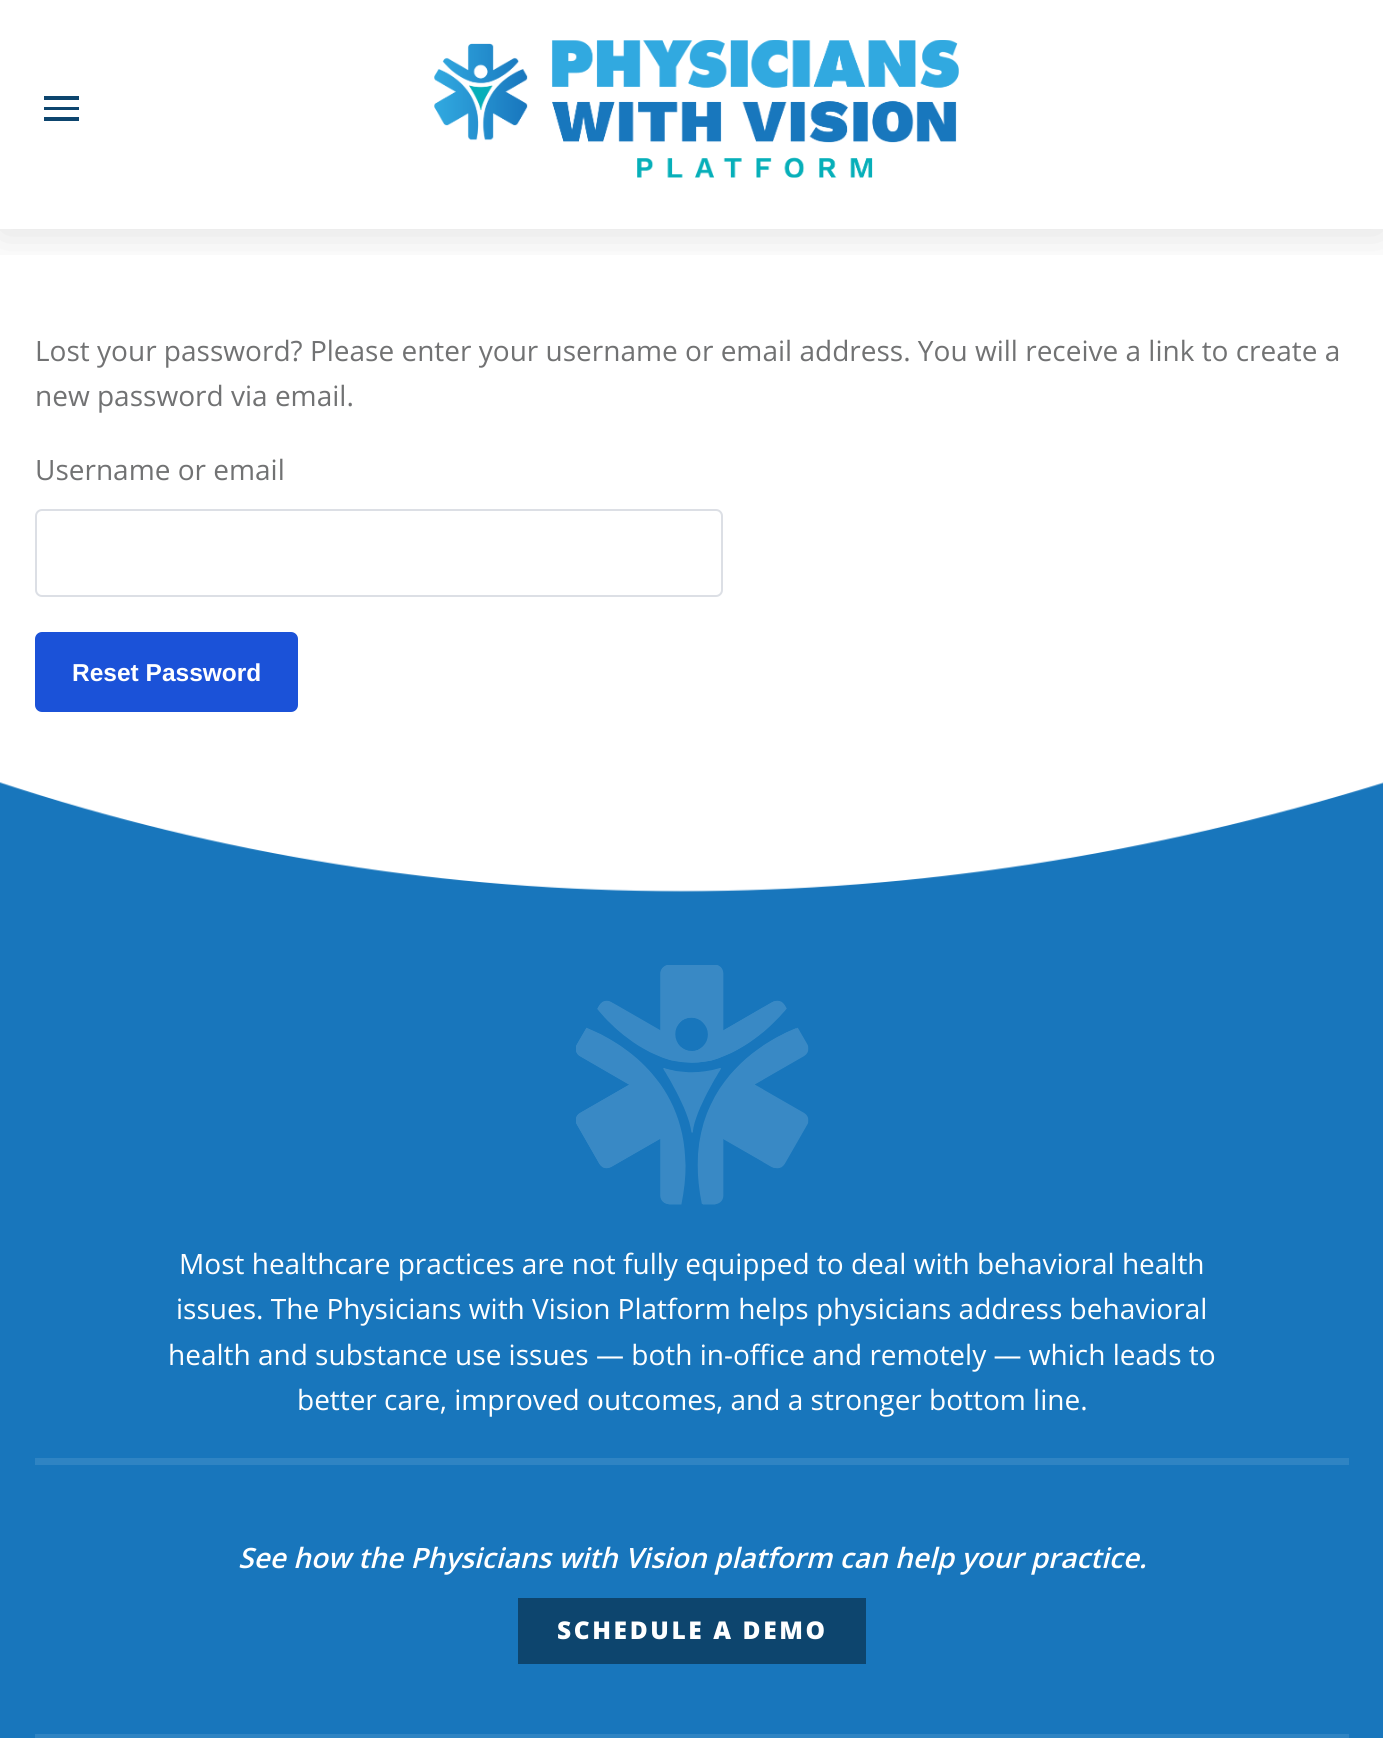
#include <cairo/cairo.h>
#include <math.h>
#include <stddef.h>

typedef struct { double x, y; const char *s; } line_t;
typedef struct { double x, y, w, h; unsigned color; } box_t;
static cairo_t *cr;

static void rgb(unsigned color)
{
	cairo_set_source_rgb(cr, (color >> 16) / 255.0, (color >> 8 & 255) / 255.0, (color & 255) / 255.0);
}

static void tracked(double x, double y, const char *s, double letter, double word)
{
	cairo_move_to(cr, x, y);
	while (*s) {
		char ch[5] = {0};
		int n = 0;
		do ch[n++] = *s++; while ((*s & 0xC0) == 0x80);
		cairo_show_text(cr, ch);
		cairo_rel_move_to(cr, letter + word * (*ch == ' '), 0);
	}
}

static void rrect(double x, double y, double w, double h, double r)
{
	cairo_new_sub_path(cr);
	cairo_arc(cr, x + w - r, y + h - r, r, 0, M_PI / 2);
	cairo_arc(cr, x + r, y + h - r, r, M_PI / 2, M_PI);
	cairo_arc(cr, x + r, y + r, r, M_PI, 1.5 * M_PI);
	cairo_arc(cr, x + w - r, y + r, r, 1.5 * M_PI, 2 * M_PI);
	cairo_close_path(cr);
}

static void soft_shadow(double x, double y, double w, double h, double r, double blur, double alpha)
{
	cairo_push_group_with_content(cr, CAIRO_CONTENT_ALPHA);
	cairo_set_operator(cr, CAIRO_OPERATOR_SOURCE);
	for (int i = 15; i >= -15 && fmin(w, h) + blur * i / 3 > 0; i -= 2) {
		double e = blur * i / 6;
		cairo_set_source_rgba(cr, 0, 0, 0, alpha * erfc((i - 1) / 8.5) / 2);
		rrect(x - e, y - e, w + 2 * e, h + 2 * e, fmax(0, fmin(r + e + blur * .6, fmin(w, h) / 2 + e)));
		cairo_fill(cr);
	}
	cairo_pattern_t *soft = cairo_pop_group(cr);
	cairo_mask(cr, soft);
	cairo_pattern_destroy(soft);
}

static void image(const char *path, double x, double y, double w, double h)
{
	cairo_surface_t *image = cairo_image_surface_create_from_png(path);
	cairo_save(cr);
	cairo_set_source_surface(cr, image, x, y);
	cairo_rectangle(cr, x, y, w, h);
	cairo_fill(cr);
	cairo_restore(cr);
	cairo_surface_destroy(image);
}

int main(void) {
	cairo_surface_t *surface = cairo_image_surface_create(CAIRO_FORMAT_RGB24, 1383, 1738);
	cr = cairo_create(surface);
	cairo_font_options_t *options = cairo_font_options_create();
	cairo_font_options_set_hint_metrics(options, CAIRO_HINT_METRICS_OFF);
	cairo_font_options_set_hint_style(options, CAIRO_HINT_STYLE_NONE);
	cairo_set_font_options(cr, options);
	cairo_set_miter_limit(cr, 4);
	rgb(0xffffff);
	cairo_paint(cr);
	cairo_save(cr);
	cairo_rectangle(cr, 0, 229, 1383, 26);
	cairo_clip(cr);
	rgb(0x000000);
	soft_shadow(0, -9, 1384, 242, 0, 22, 0.13);
	cairo_restore(cr);
	{
		static const box_t items[] = {
			{44, 96, 35, 4, 0x0d456e},
			{44, 107, 35, 3, 0x0d456e},
			{44, 117, 35, 4, 0x0d456e},
		};
		for (size_t i = 0; i < sizeof items / sizeof *items; i++) {
			rgb(items[i].color);
			cairo_rectangle(cr, items[i].x, items[i].y, items[i].w, items[i].h);
			cairo_fill(cr);
		}
	}
	image("img/1.png", 434, 40, 525, 138);
	rrect(36, 510, 686, 86, 6);
	rgb(0xdcdfe5);
	cairo_stroke(cr);
	rgb(0x1b52d8);
	rrect(36, 633, 261, 78, 6);
	cairo_fill_preserve(cr);
	cairo_stroke(cr);
	image("img/2.png", 0, 782, 1383, 112);
	rgb(0x1876bc);
	cairo_rectangle(cr, 0, 894, 1383, 844);
	cairo_fill(cr);
	image("img/3.png", 576, 965, 233, 240);
	{
		static const box_t items[] = {
			{35, 1458, 1314, 7, 0x2f84c3},
			{518, 1598, 348, 66, 0x0d456e},
			{35, 1734, 1314, 4, 0x2f84c3},
		};
		for (size_t i = 0; i < sizeof items / sizeof *items; i++) {
			rgb(items[i].color);
			cairo_rectangle(cr, items[i].x, items[i].y, items[i].w, items[i].h);
			cairo_fill(cr);
		}
	}
	cairo_select_font_face(cr, "Open Sans", CAIRO_FONT_SLANT_NORMAL, CAIRO_FONT_WEIGHT_NORMAL);
	cairo_set_font_size(cr, 28);
	rgb(0x717273);
	{
		static const line_t items[] = {
			{35, 361, "Lost your password? Please enter your username or email address. You will receive a link to create a"},
			{35, 406, "new password via email."},
			{35, 480, "Username or email"},
		};
		for (size_t i = 0; i < sizeof items / sizeof *items; i++) {
			cairo_move_to(cr, items[i].x, items[i].y);
			cairo_show_text(cr, items[i].s);
		}
	}
	cairo_select_font_face(cr, "Liberation Sans", CAIRO_FONT_SLANT_NORMAL, CAIRO_FONT_WEIGHT_BOLD);
	cairo_set_font_size(cr, 24.5);
	rgb(0xffffff);
	cairo_move_to(cr, 72, 681);
	cairo_show_text(cr, "Reset Password");
	cairo_select_font_face(cr, "Open Sans", CAIRO_FONT_SLANT_NORMAL, CAIRO_FONT_WEIGHT_NORMAL);
	cairo_set_font_size(cr, 28);
	{
		static const line_t items[] = {
			{179, 1274, "Most healthcare practices are not fully equipped to deal with behavioral health"},
			{176, 1319, "issues. The Physicians with Vision Platform helps physicians address behavioral"},
			{168, 1365, "health and substance use issues — both in-office and remotely — which leads to"},
			{297, 1410, "better care, improved outcomes, and a stronger bottom line."},
		};
		for (size_t i = 0; i < sizeof items / sizeof *items; i++) {
			cairo_move_to(cr, items[i].x, items[i].y);
			cairo_show_text(cr, items[i].s);
		}
	}
	cairo_select_font_face(cr, "Open Sans SemiBold", CAIRO_FONT_SLANT_ITALIC, CAIRO_FONT_WEIGHT_NORMAL);
	cairo_move_to(cr, 238, 1568);
	cairo_show_text(cr, "See how the Physicians with Vision platform can help your practice.");
	cairo_select_font_face(cr, "Open Sans ExtraBold", CAIRO_FONT_SLANT_NORMAL, CAIRO_FONT_WEIGHT_NORMAL);
	cairo_set_font_size(cr, 24.5);
	tracked(557, 1639, "SCHEDULE A DEMO", 2.6, 0);
	cairo_surface_write_to_png(surface, "page.png");
	cairo_font_options_destroy(options);
	cairo_destroy(cr);
	cairo_surface_destroy(surface);
	return 0;
}
